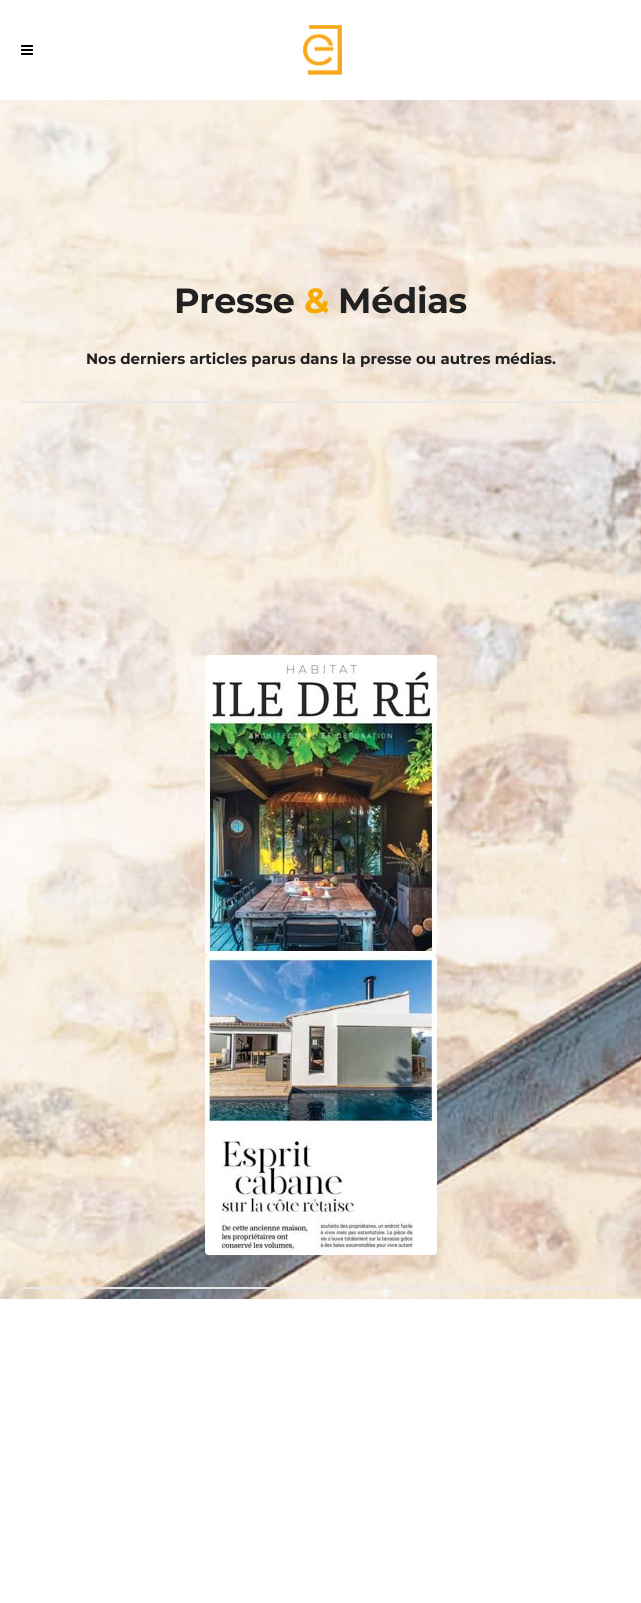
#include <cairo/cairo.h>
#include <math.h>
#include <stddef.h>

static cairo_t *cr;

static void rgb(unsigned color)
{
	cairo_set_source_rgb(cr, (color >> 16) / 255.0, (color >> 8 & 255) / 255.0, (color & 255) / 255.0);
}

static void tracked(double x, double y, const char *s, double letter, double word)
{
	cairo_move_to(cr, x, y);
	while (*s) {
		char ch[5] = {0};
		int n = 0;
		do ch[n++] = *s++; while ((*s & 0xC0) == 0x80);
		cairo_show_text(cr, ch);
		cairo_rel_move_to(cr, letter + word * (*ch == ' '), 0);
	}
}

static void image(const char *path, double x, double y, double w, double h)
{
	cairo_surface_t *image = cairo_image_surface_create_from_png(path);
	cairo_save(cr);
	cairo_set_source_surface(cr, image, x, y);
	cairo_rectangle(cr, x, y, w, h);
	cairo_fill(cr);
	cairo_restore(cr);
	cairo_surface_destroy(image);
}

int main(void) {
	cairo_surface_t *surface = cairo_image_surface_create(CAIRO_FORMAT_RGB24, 641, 1603);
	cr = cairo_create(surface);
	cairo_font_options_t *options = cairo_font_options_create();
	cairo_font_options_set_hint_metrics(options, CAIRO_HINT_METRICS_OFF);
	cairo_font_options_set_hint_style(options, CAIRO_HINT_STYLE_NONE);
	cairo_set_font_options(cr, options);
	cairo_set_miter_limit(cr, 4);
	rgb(0xffffff);
	cairo_paint(cr);
	image("img/1.png", 21, 45, 12, 10);
	image("img/2.png", 303, 25, 39, 50);
	image("img/3.png", 0, 100, 641, 1199);
	rgb(0xe8e8e8);
	cairo_rectangle(cr, 21, 401, 600, 2);
	cairo_fill(cr);
	image("img/4.png", 205, 655, 232, 300);
	image("img/5.png", 205, 955, 232, 300);
	cairo_rectangle(cr, 21, 1287, 600, 2);
	cairo_fill(cr);
	cairo_select_font_face(cr, "Montserrat", CAIRO_FONT_SLANT_NORMAL, CAIRO_FONT_WEIGHT_BOLD);
	cairo_set_font_size(cr, 35);
	rgb(0x212121);
	tracked(174, 313, "Presse", -0.25, 0);
	rgb(0xf7a900);
	tracked(304, 313, "&", -0.25, 0);
	rgb(0x212121);
	tracked(338, 313, "Médias", -0.25, 0);
	cairo_set_font_size(cr, 15);
	cairo_move_to(cr, 86, 364);
	cairo_show_text(cr, "Nos derniers articles parus dans la presse ou autres médias.");
	cairo_surface_write_to_png(surface, "page.png");
	cairo_font_options_destroy(options);
	cairo_destroy(cr);
	cairo_surface_destroy(surface);
	return 0;
}
